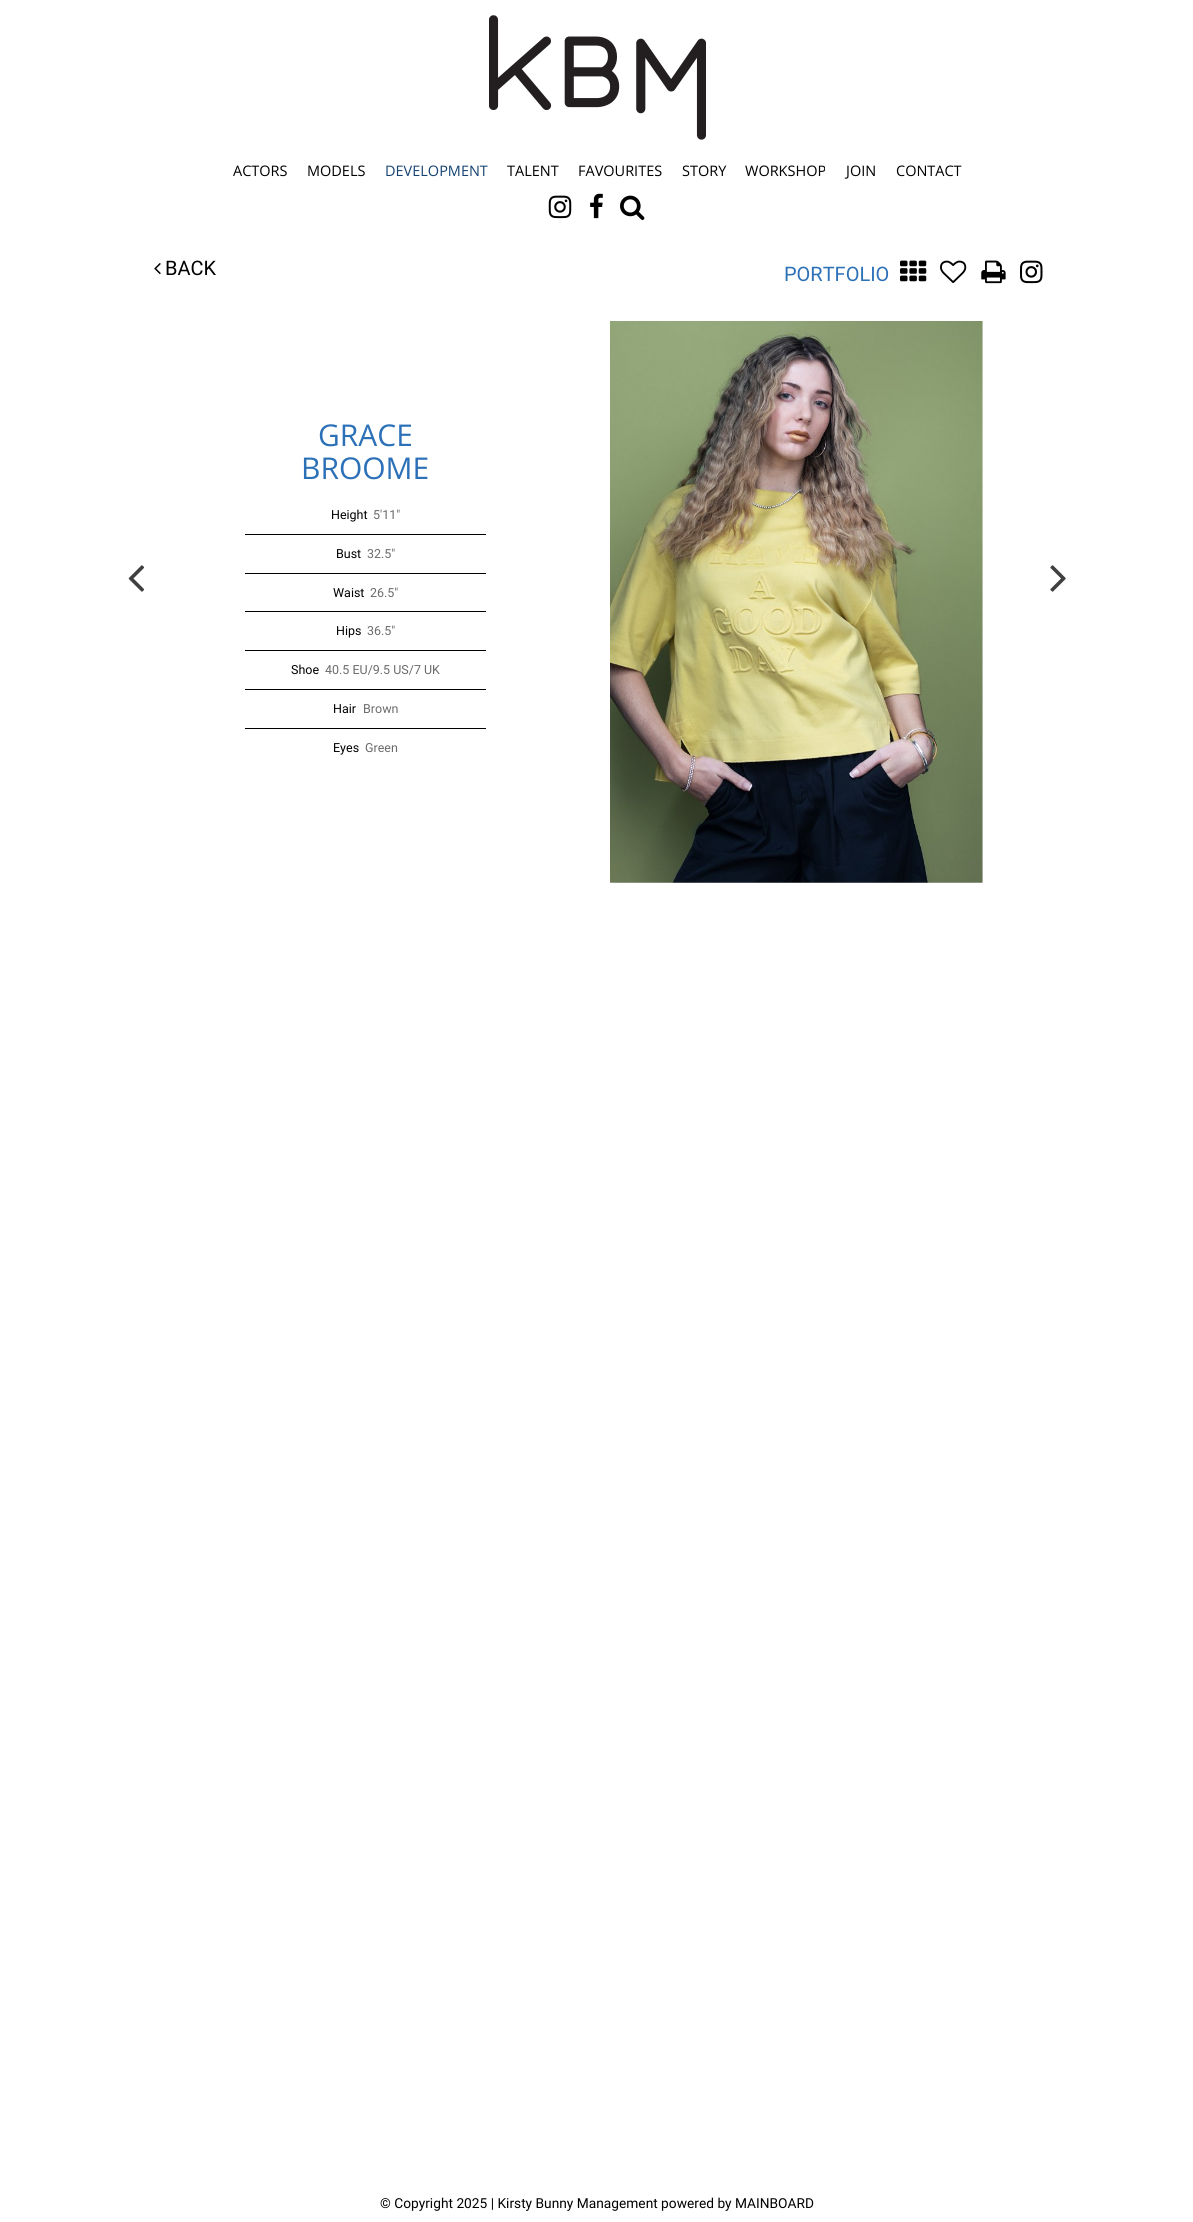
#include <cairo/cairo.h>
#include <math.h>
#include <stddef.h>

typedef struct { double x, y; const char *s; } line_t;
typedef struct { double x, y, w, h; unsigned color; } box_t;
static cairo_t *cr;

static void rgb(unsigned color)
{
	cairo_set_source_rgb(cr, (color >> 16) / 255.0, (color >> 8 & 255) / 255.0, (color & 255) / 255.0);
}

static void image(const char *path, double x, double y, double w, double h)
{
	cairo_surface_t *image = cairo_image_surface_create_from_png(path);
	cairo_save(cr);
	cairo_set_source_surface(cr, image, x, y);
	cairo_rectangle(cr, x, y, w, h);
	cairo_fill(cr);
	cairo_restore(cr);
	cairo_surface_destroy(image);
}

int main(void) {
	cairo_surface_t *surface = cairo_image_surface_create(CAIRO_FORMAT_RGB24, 1193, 2222);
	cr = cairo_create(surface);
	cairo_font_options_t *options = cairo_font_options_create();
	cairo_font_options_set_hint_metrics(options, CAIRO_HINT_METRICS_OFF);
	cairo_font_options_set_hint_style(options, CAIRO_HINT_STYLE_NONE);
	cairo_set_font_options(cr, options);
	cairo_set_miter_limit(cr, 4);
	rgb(0xffffff);
	cairo_paint(cr);
	image("img/1.png", 489, 15, 217, 125);
	image("img/2.png", 548, 195, 24, 24);
	image("img/3.png", 590, 193, 13, 26);
	image("img/4.png", 620, 195, 25, 25);
	image("img/5.png", 154, 263, 7, 12);
	image("img/6.png", 900, 260, 27, 22);
	image("img/7.png", 940, 260, 27, 24);
	image("img/8.png", 981, 260, 25, 24);
	image("img/9.png", 1020, 260, 23, 24);
	image("img/10.png", 128, 565, 17, 27);
	{
		static const box_t items[] = {
			{245, 534, 241, 1, 0x000000},
			{245, 573, 241, 1, 0x000000},
			{245, 611, 241, 1, 0x000000},
			{245, 650, 241, 1, 0x000000},
			{245, 689, 241, 1, 0x000000},
			{245, 728, 241, 1, 0x000000},
		};
		for (size_t i = 0; i < sizeof items / sizeof *items; i++) {
			rgb(items[i].color);
			cairo_rectangle(cr, items[i].x, items[i].y, items[i].w, items[i].h);
			cairo_fill(cr);
		}
	}
	image("img/11.png", 610, 321, 373, 562);
	image("img/12.png", 1050, 565, 16, 27);
	cairo_select_font_face(cr, "Open Sans", CAIRO_FONT_SLANT_NORMAL, CAIRO_FONT_WEIGHT_NORMAL);
	cairo_set_font_size(cr, 14.5);
	cairo_move_to(cr, 233, 176);
	cairo_show_text(cr, "ACTORS");
	cairo_move_to(cr, 307, 176);
	cairo_show_text(cr, "MODELS");
	rgb(0x154272);
	cairo_move_to(cr, 385, 176);
	cairo_show_text(cr, "DEVELOPMENT");
	rgb(0x000000);
	{
		static const line_t items[] = {
			{507, 176, "TALENT"},
			{578, 176, "FAVOURITES"},
			{682, 176, "STORY"},
			{745, 176, "WORKSHOP"},
			{846, 176, "JOIN"},
			{896, 176, "CONTACT"},
		};
		for (size_t i = 0; i < sizeof items / sizeof *items; i++) {
			cairo_move_to(cr, items[i].x, items[i].y);
			cairo_show_text(cr, items[i].s);
		}
	}
	cairo_select_font_face(cr, "Roboto", CAIRO_FONT_SLANT_NORMAL, CAIRO_FONT_WEIGHT_NORMAL);
	cairo_set_font_size(cr, 20);
	cairo_move_to(cr, 165, 275);
	cairo_show_text(cr, "BACK");
	rgb(0x2c71b8);
	cairo_move_to(cr, 784, 281);
	cairo_show_text(cr, "PORTFOLIO");
	cairo_select_font_face(cr, "Open Sans", CAIRO_FONT_SLANT_NORMAL, CAIRO_FONT_WEIGHT_NORMAL);
	cairo_set_font_size(cr, 30);
	cairo_move_to(cr, 318, 446);
	cairo_show_text(cr, "GRACE");
	cairo_move_to(cr, 301, 479);
	cairo_show_text(cr, "BROOME");
	cairo_select_font_face(cr, "Roboto", CAIRO_FONT_SLANT_NORMAL, CAIRO_FONT_WEIGHT_NORMAL);
	cairo_set_font_size(cr, 12.5);
	rgb(0x000000);
	cairo_move_to(cr, 331, 519);
	cairo_show_text(cr, "Height");
	rgb(0x6a6a6a);
	cairo_move_to(cr, 373, 519);
	cairo_show_text(cr, "5'11\"");
	rgb(0x000000);
	cairo_move_to(cr, 336, 558);
	cairo_show_text(cr, "Bust");
	rgb(0x6a6a6a);
	cairo_move_to(cr, 367, 558);
	cairo_show_text(cr, "32.5\"");
	rgb(0x000000);
	cairo_move_to(cr, 333, 597);
	cairo_show_text(cr, "Waist");
	rgb(0x6a6a6a);
	cairo_move_to(cr, 370, 597);
	cairo_show_text(cr, "26.5\"");
	rgb(0x000000);
	cairo_move_to(cr, 336, 635);
	cairo_show_text(cr, "Hips");
	rgb(0x6a6a6a);
	cairo_move_to(cr, 367, 635);
	cairo_show_text(cr, "36.5\"");
	rgb(0x000000);
	cairo_move_to(cr, 291, 674);
	cairo_show_text(cr, "Shoe");
	rgb(0x6a6a6a);
	cairo_move_to(cr, 325, 674);
	cairo_show_text(cr, "40.5 EU/9.5 US/7 UK");
	rgb(0x000000);
	cairo_move_to(cr, 333, 713);
	cairo_show_text(cr, "Hair");
	rgb(0x6a6a6a);
	cairo_move_to(cr, 363, 713);
	cairo_show_text(cr, "Brown");
	rgb(0x000000);
	cairo_move_to(cr, 333, 752);
	cairo_show_text(cr, "Eyes");
	rgb(0x6a6a6a);
	cairo_move_to(cr, 365, 752);
	cairo_show_text(cr, "Green");
	cairo_set_font_size(cr, 13.75);
	rgb(0x000000);
	cairo_move_to(cr, 380, 2208);
	cairo_show_text(cr, "© Copyright 2025 | Kirsty Bunny Management powered by MAINBOARD");
	cairo_surface_write_to_png(surface, "page.png");
	cairo_font_options_destroy(options);
	cairo_destroy(cr);
	cairo_surface_destroy(surface);
	return 0;
}
